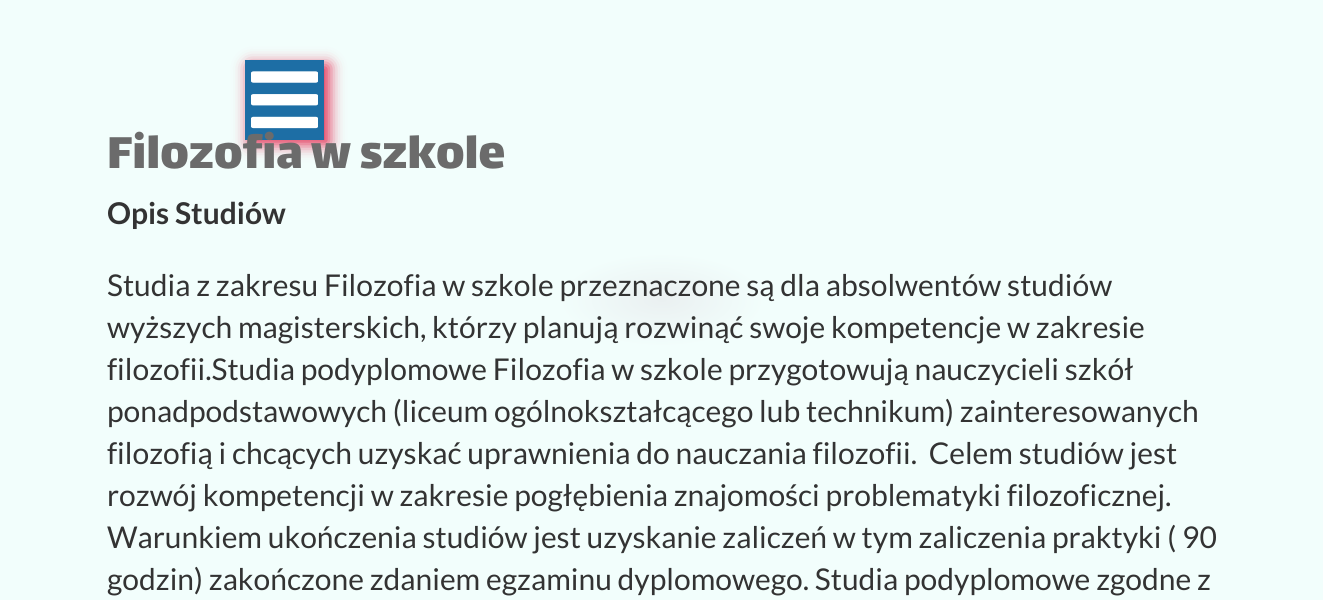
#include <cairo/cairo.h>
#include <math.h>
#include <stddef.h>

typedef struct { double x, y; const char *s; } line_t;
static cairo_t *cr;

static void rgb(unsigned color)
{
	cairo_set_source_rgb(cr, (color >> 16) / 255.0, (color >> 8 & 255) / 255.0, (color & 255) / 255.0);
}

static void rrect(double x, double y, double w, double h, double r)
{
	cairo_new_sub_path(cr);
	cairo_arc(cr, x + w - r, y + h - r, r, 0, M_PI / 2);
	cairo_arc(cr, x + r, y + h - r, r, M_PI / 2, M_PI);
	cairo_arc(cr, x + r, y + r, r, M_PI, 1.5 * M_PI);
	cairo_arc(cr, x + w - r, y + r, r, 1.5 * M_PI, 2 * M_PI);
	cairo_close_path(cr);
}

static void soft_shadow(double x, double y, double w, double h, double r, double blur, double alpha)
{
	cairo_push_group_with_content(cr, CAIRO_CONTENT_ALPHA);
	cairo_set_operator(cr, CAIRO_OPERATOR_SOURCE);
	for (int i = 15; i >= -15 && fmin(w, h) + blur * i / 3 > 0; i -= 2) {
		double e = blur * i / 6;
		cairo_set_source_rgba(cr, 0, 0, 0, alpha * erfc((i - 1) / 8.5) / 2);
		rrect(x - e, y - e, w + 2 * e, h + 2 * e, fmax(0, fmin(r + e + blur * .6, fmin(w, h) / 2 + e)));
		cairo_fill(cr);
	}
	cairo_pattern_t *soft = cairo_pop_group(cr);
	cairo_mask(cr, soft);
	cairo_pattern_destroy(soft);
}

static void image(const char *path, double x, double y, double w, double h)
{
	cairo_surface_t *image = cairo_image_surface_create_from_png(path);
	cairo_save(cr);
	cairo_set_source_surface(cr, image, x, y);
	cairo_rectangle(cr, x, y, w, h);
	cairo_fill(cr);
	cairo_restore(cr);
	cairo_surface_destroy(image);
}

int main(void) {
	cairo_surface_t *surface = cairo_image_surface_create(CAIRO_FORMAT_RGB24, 1323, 600);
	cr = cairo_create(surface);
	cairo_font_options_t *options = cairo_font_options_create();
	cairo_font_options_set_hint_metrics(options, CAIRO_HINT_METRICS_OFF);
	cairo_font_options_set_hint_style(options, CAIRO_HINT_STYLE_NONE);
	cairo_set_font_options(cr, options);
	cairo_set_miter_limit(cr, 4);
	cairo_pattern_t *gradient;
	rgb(0xffffff);
	cairo_paint(cr);
	gradient = cairo_pattern_create_radial(0, 0, 0, 0, 0, 1);
	cairo_pattern_set_matrix(gradient, &(cairo_matrix_t){1.0 / 936, 0, 0, 1.0 / 424, -1.0 * 662 / 936, -1.0 * 300 / 424});
	cairo_pattern_add_color_stop_rgba(gradient, 0, 0.918, 0.941, 0.945, 1);
	cairo_pattern_add_color_stop_rgba(gradient, 0.11, 0.949, 0.996, 0.988, 1);
	cairo_set_source(cr, gradient);
	cairo_pattern_destroy(gradient);
	cairo_rectangle(cr, 0, 0, 1323, 600);
	cairo_fill(cr);
	cairo_save(cr);
	cairo_set_fill_rule(cr, CAIRO_FILL_RULE_EVEN_ODD);
	cairo_new_path(cr);
	cairo_move_to(cr, 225, 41);
	cairo_line_to(cr, 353, 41);
	cairo_line_to(cr, 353, 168);
	cairo_line_to(cr, 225, 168);
	cairo_close_path(cr);
	cairo_move_to(cr, 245, 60);
	cairo_line_to(cr, 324, 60);
	cairo_line_to(cr, 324, 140);
	cairo_line_to(cr, 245, 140);
	cairo_close_path(cr);
	cairo_clip(cr);
	rgb(0xe32249);
	soft_shadow(249, 65, 80, 79, 0, 7.5, 1);
	cairo_restore(cr);
	cairo_set_source_rgba(cr, 0.031, 0.376, 0.612, 0.91);
	cairo_rectangle(cr, 245, 60, 79, 80);
	cairo_fill(cr);
	image("img/1.png", 251, 71, 67, 58);
	cairo_select_font_face(cr, "Lalezar", CAIRO_FONT_SLANT_NORMAL, CAIRO_FONT_WEIGHT_NORMAL);
	cairo_set_font_size(cr, 54);
	rgb(0x6b6b6b);
	cairo_move_to(cr, 107, 168);
	cairo_show_text(cr, "Filozofia w szkole");
	cairo_select_font_face(cr, "Lato", CAIRO_FONT_SLANT_NORMAL, CAIRO_FONT_WEIGHT_BOLD);
	cairo_set_font_size(cr, 30);
	rgb(0x333333);
	cairo_move_to(cr, 107, 224);
	cairo_show_text(cr, "Opis Studiów");
	cairo_select_font_face(cr, "Lato", CAIRO_FONT_SLANT_NORMAL, CAIRO_FONT_WEIGHT_NORMAL);
	{
		static const line_t items[] = {
			{107, 296, "Studia z zakresu Filozofia w szkole przeznaczone są dla absolwentów studiów"},
			{107, 338, "wyższych magisterskich, którzy planują rozwinąć swoje kompetencje w zakresie"},
			{107, 380, "filozofii.Studia podyplomowe Filozofia w szkole przygotowują nauczycieli szkół"},
			{107, 422, "ponadpodstawowych (liceum ogólnokształcącego lub technikum) zainteresowanych"},
			{107, 464, "filozofią i chcących uzyskać uprawnienia do nauczania filozofii.  Celem studiów jest"},
			{107, 506, "rozwój kompetencji w zakresie pogłębienia znajomości problematyki filozoficznej."},
			{107, 548, "Warunkiem ukończenia studiów jest uzyskanie zaliczeń w tym zaliczenia praktyki ( 90"},
			{107, 590, "godzin) zakończone zdaniem egzaminu dyplomowego. Studia podyplomowe zgodne z"},
		};
		for (size_t i = 0; i < sizeof items / sizeof *items; i++) {
			cairo_move_to(cr, items[i].x, items[i].y);
			cairo_show_text(cr, items[i].s);
		}
	}
	cairo_surface_write_to_png(surface, "page.png");
	cairo_font_options_destroy(options);
	cairo_destroy(cr);
	cairo_surface_destroy(surface);
	return 0;
}
